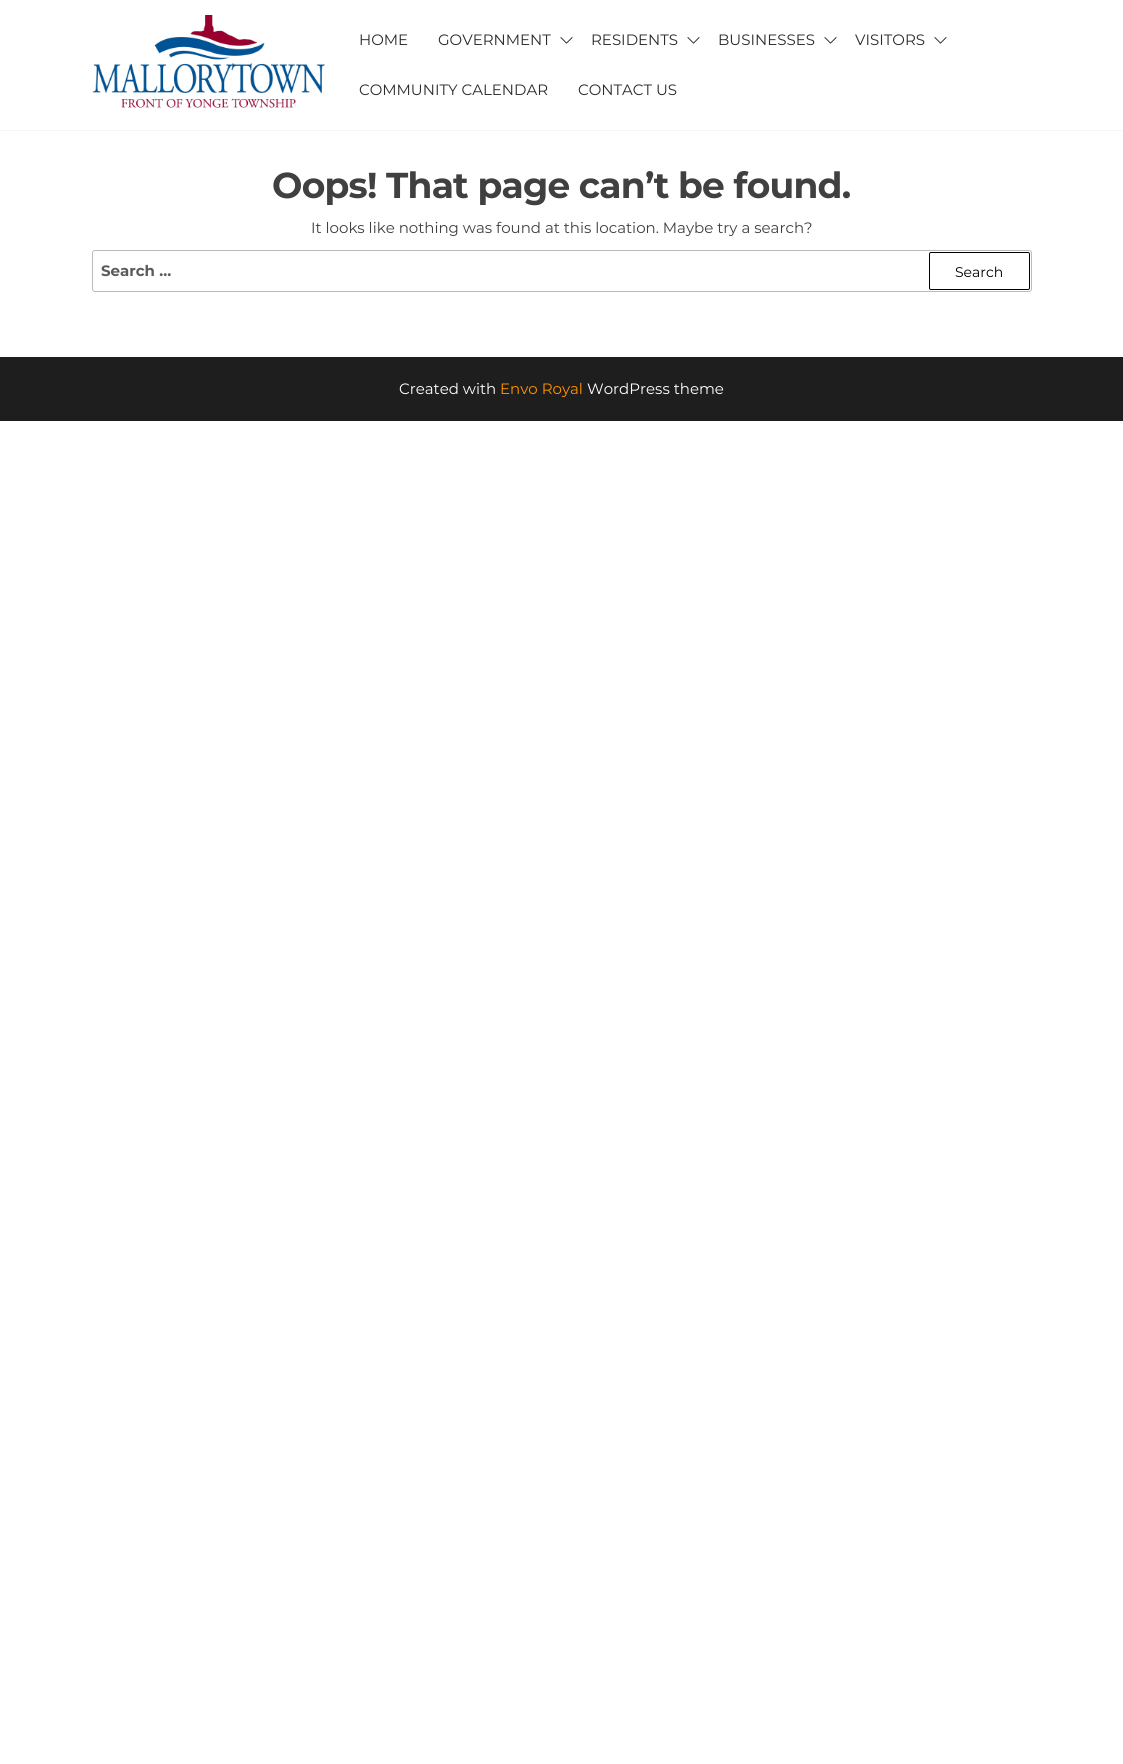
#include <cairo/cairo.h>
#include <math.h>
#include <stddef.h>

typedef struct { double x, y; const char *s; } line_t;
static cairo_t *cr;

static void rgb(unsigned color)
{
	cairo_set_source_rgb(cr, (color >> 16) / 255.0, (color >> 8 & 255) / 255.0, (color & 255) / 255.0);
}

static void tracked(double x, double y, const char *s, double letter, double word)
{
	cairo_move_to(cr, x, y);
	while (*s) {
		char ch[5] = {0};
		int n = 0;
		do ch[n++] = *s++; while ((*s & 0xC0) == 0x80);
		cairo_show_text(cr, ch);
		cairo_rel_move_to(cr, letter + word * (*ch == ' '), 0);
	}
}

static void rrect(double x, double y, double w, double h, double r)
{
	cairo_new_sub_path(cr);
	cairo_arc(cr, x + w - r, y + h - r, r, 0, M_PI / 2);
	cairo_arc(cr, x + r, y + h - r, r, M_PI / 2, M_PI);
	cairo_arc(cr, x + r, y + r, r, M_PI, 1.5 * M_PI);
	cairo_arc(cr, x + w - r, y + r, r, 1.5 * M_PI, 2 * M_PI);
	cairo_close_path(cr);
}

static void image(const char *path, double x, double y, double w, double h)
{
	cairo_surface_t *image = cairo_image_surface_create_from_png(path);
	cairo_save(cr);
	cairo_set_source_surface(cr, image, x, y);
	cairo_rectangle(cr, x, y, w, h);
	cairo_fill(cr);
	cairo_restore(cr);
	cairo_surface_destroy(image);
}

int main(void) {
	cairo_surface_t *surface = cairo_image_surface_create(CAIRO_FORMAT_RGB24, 1123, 1764);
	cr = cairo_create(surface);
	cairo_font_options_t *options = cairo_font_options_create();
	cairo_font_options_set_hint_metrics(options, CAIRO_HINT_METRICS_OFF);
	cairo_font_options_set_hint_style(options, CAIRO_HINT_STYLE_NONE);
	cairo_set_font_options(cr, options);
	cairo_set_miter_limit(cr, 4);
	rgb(0xffffff);
	cairo_paint(cr);
	rgb(0xf6f6f6);
	cairo_rectangle(cr, 0, 130, 1123, 1);
	cairo_fill(cr);
	image("img/1.png", 92, 15, 233, 93);
	image("img/2.png", 560, 37, 13, 7);
	image("img/2.png", 687, 37, 13, 7);
	image("img/2.png", 824, 37, 13, 7);
	image("img/2.png", 934, 37, 13, 7);
	rrect(92.5, 250.5, 939, 41, 2.5);
	rgb(0xbbbbbb);
	cairo_set_line_width(cr, 1);
	cairo_stroke(cr);
	rrect(929.5, 252.5, 100, 37, 1.5);
	rgb(0x000000);
	cairo_stroke(cr);
	rgb(0x1e1e1e);
	cairo_rectangle(cr, 0, 357, 1123, 64);
	cairo_fill(cr);
	cairo_select_font_face(cr, "Montserrat", CAIRO_FONT_SLANT_NORMAL, CAIRO_FONT_WEIGHT_NORMAL);
	cairo_set_font_size(cr, 15);
	rgb(0x2b2b2b);
	{
		static const line_t items[] = {
			{359, 45, "HOME"},
			{438, 45, "GOVERNMENT"},
			{591, 45, "RESIDENTS"},
			{718, 45, "BUSINESSES"},
			{855, 45, "VISITORS"},
			{359, 95, "COMMUNITY CALENDAR"},
			{578, 95, "CONTACT US"},
		};
		for (size_t i = 0; i < sizeof items / sizeof *items; i++) {
			cairo_move_to(cr, items[i].x, items[i].y);
			cairo_show_text(cr, items[i].s);
		}
	}
	cairo_select_font_face(cr, "Montserrat", CAIRO_FONT_SLANT_NORMAL, CAIRO_FONT_WEIGHT_BOLD);
	cairo_set_font_size(cr, 36);
	rgb(0x404040);
	tracked(272, 198, "Oops! That page can’t be found.", -0.75, 0);
	cairo_select_font_face(cr, "Montserrat", CAIRO_FONT_SLANT_NORMAL, CAIRO_FONT_WEIGHT_NORMAL);
	cairo_set_font_size(cr, 15);
	cairo_move_to(cr, 311, 233);
	cairo_show_text(cr, "It looks like nothing was found at this location. Maybe try a search?");
	cairo_select_font_face(cr, "Montserrat", CAIRO_FONT_SLANT_NORMAL, CAIRO_FONT_WEIGHT_BOLD);
	rgb(0x5b5b5b);
	cairo_move_to(cr, 101, 276);
	cairo_show_text(cr, "Search …");
	cairo_select_font_face(cr, "Montserrat", CAIRO_FONT_SLANT_NORMAL, CAIRO_FONT_WEIGHT_NORMAL);
	cairo_set_font_size(cr, 14);
	rgb(0x000000);
	cairo_move_to(cr, 955, 277);
	cairo_show_text(cr, "Search");
	cairo_set_font_size(cr, 15);
	rgb(0xffffff);
	cairo_move_to(cr, 399, 394);
	cairo_show_text(cr, "Created with");
	rgb(0xff9200);
	cairo_move_to(cr, 500, 394);
	cairo_show_text(cr, "Envo Royal");
	rgb(0xffffff);
	cairo_move_to(cr, 587, 394);
	cairo_show_text(cr, "WordPress theme");
	cairo_surface_write_to_png(surface, "page.png");
	cairo_font_options_destroy(options);
	cairo_destroy(cr);
	cairo_surface_destroy(surface);
	return 0;
}
